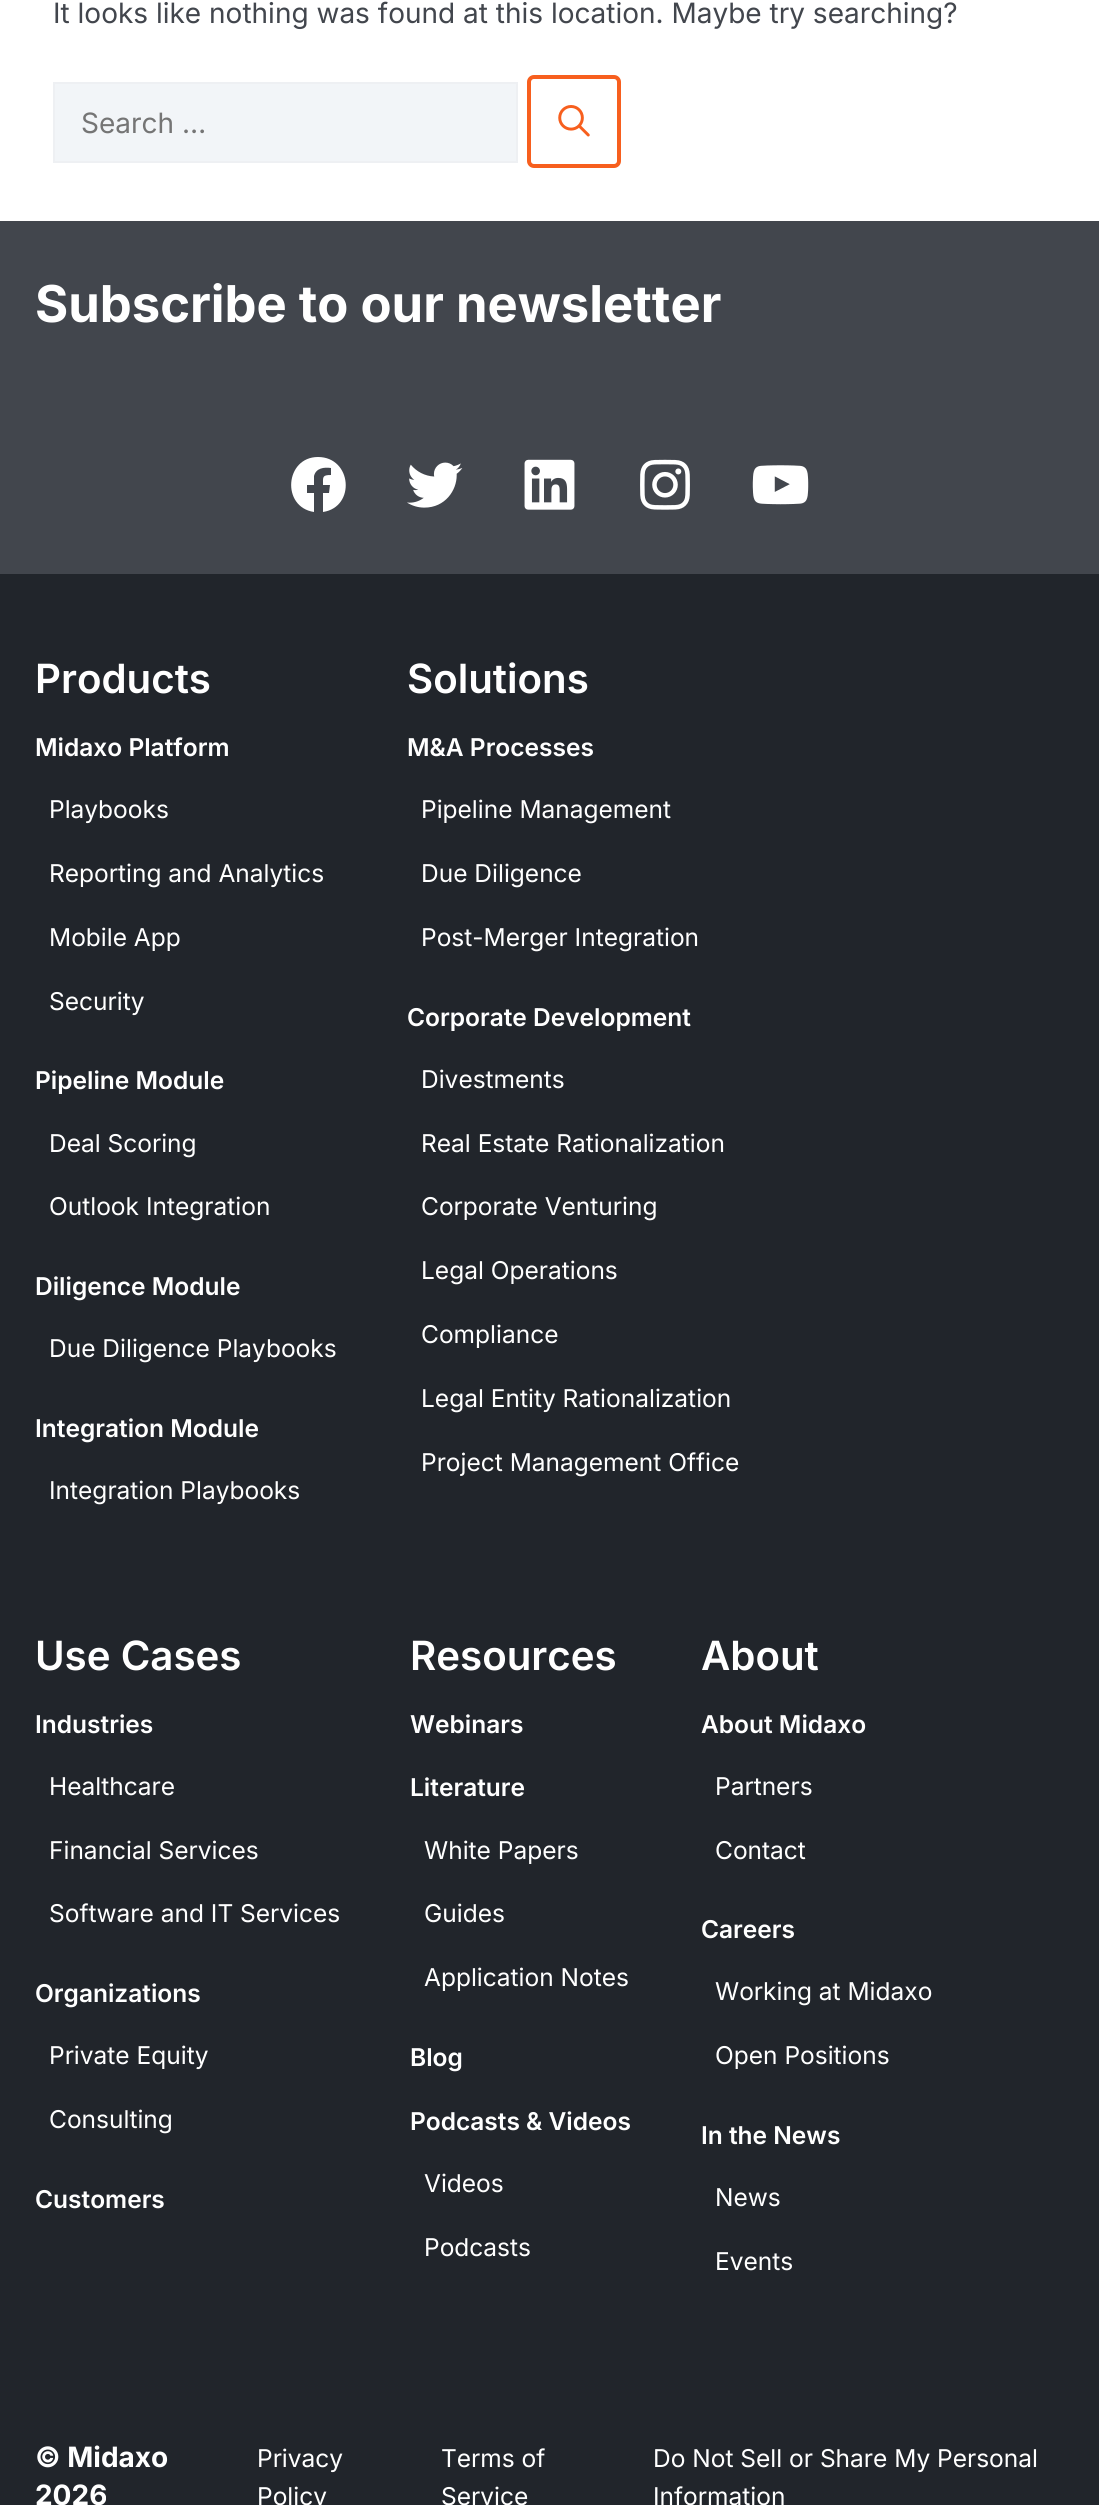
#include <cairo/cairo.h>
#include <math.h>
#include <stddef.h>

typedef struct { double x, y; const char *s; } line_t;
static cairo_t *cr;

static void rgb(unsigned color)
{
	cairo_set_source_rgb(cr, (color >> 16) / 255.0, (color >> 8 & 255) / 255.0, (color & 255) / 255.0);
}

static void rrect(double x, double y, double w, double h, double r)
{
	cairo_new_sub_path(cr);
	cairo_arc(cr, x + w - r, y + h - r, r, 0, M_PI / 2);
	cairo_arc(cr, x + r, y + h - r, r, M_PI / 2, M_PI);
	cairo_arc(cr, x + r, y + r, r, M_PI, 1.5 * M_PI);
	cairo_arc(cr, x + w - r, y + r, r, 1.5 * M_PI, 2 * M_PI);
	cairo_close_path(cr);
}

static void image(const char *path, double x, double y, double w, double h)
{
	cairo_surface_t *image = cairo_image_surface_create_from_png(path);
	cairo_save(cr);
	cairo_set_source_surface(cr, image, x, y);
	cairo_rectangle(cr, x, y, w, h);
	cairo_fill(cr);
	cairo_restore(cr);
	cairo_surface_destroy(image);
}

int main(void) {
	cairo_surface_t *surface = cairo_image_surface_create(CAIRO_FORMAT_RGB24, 1099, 2505);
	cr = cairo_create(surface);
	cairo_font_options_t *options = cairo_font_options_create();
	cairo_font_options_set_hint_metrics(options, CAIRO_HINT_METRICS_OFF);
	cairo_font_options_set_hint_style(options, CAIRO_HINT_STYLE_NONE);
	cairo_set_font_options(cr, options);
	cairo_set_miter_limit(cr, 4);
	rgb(0xffffff);
	cairo_paint(cr);
	rgb(0xf2f5f8);
	cairo_rectangle(cr, 54, 83, 463, 79);
	cairo_fill_preserve(cr);
	rgb(0xeef0f3);
	cairo_stroke(cr);
	rrect(529, 77, 90, 89, 5);
	rgb(0xf75f1e);
	cairo_set_line_width(cr, 4);
	cairo_stroke(cr);
	image("img/1.png", 558, 105, 32, 32);
	rgb(0x42464d);
	cairo_rectangle(cr, 0, 221, 1099, 353);
	cairo_fill(cr);
	rgb(0xffffff);
	cairo_new_path(cr);
	cairo_move_to(cr, 318, 457);
	cairo_curve_to(cr, 285, 457, 281, 507, 314, 512);
	cairo_line_to(cr, 314, 493);
	cairo_line_to(cr, 307, 493);
	cairo_line_to(cr, 307, 485);
	cairo_line_to(cr, 314, 485);
	cairo_line_to(cr, 314, 476);
	cairo_curve_to(cr, 316, 468, 324, 467, 331, 468);
	cairo_line_to(cr, 331, 475);
	cairo_curve_to(cr, 322, 475, 323, 477, 323, 485);
	cairo_line_to(cr, 330, 485);
	cairo_line_to(cr, 329, 493);
	cairo_line_to(cr, 323, 493);
	cairo_line_to(cr, 323, 512);
	cairo_curve_to(cr, 356, 507, 352, 457, 318, 457);
	cairo_close_path(cr);
	cairo_fill(cr);
	image("img/2.png", 407, 462, 56, 46);
	image("img/3.png", 524, 459, 51, 51);
	image("img/4.png", 640, 459, 50, 51);
	image("img/5.png", 752, 465, 57, 40);
	rgb(0x21252b);
	cairo_rectangle(cr, 0, 574, 1099, 1931);
	cairo_fill(cr);
	cairo_select_font_face(cr, "Inter", CAIRO_FONT_SLANT_NORMAL, CAIRO_FONT_WEIGHT_NORMAL);
	cairo_set_font_size(cr, 28);
	rgb(0x42464d);
	cairo_move_to(cr, 53, 23);
	cairo_show_text(cr, "It looks like nothing was found at this location. Maybe try searching?");
	rgb(0x757575);
	cairo_move_to(cr, 81, 133);
	cairo_show_text(cr, "Search …");
	cairo_select_font_face(cr, "Inter", CAIRO_FONT_SLANT_NORMAL, CAIRO_FONT_WEIGHT_BOLD);
	cairo_set_font_size(cr, 50.75);
	rgb(0xffffff);
	cairo_move_to(cr, 35, 322);
	cairo_show_text(cr, "Subscribe to our newsletter");
	cairo_select_font_face(cr, "Inter SemiBold", CAIRO_FONT_SLANT_NORMAL, CAIRO_FONT_WEIGHT_NORMAL);
	cairo_set_font_size(cr, 40.25);
	cairo_move_to(cr, 35, 693);
	cairo_show_text(cr, "Products");
	cairo_set_font_size(cr, 24.5);
	cairo_move_to(cr, 35, 756);
	cairo_show_text(cr, "Midaxo Platform");
	cairo_select_font_face(cr, "Inter", CAIRO_FONT_SLANT_NORMAL, CAIRO_FONT_WEIGHT_NORMAL);
	{
		static const line_t items[] = {
			{49, 818, "Playbooks"},
			{49, 882, "Reporting and Analytics"},
			{49, 946, "Mobile App"},
			{49, 1010, "Security"},
		};
		for (size_t i = 0; i < sizeof items / sizeof *items; i++) {
			cairo_move_to(cr, items[i].x, items[i].y);
			cairo_show_text(cr, items[i].s);
		}
	}
	cairo_select_font_face(cr, "Inter SemiBold", CAIRO_FONT_SLANT_NORMAL, CAIRO_FONT_WEIGHT_NORMAL);
	cairo_move_to(cr, 35, 1089);
	cairo_show_text(cr, "Pipeline Module");
	cairo_select_font_face(cr, "Inter", CAIRO_FONT_SLANT_NORMAL, CAIRO_FONT_WEIGHT_NORMAL);
	cairo_move_to(cr, 49, 1152);
	cairo_show_text(cr, "Deal Scoring");
	cairo_move_to(cr, 49, 1215);
	cairo_show_text(cr, "Outlook Integration");
	cairo_select_font_face(cr, "Inter SemiBold", CAIRO_FONT_SLANT_NORMAL, CAIRO_FONT_WEIGHT_NORMAL);
	cairo_move_to(cr, 35, 1295);
	cairo_show_text(cr, "Diligence Module");
	cairo_select_font_face(cr, "Inter", CAIRO_FONT_SLANT_NORMAL, CAIRO_FONT_WEIGHT_NORMAL);
	cairo_move_to(cr, 49, 1357);
	cairo_show_text(cr, "Due Diligence Playbooks");
	cairo_select_font_face(cr, "Inter SemiBold", CAIRO_FONT_SLANT_NORMAL, CAIRO_FONT_WEIGHT_NORMAL);
	cairo_move_to(cr, 35, 1437);
	cairo_show_text(cr, "Integration Module");
	cairo_select_font_face(cr, "Inter", CAIRO_FONT_SLANT_NORMAL, CAIRO_FONT_WEIGHT_NORMAL);
	cairo_move_to(cr, 49, 1499);
	cairo_show_text(cr, "Integration Playbooks");
	cairo_select_font_face(cr, "Inter SemiBold", CAIRO_FONT_SLANT_NORMAL, CAIRO_FONT_WEIGHT_NORMAL);
	cairo_set_font_size(cr, 40.25);
	cairo_move_to(cr, 407, 693);
	cairo_show_text(cr, "Solutions");
	cairo_set_font_size(cr, 24.5);
	cairo_move_to(cr, 407, 756);
	cairo_show_text(cr, "M&A Processes");
	cairo_select_font_face(cr, "Inter", CAIRO_FONT_SLANT_NORMAL, CAIRO_FONT_WEIGHT_NORMAL);
	{
		static const line_t items[] = {
			{421, 818, "Pipeline Management"},
			{421, 882, "Due Diligence"},
			{421, 946, "Post-Merger Integration"},
		};
		for (size_t i = 0; i < sizeof items / sizeof *items; i++) {
			cairo_move_to(cr, items[i].x, items[i].y);
			cairo_show_text(cr, items[i].s);
		}
	}
	cairo_select_font_face(cr, "Inter SemiBold", CAIRO_FONT_SLANT_NORMAL, CAIRO_FONT_WEIGHT_NORMAL);
	cairo_move_to(cr, 407, 1026);
	cairo_show_text(cr, "Corporate Development");
	cairo_select_font_face(cr, "Inter", CAIRO_FONT_SLANT_NORMAL, CAIRO_FONT_WEIGHT_NORMAL);
	{
		static const line_t items[] = {
			{421, 1088, "Divestments"},
			{421, 1152, "Real Estate Rationalization"},
			{421, 1215, "Corporate Venturing"},
			{421, 1279, "Legal Operations"},
			{421, 1343, "Compliance"},
			{421, 1407, "Legal Entity Rationalization"},
			{421, 1471, "Project Management Office"},
		};
		for (size_t i = 0; i < sizeof items / sizeof *items; i++) {
			cairo_move_to(cr, items[i].x, items[i].y);
			cairo_show_text(cr, items[i].s);
		}
	}
	cairo_select_font_face(cr, "Inter SemiBold", CAIRO_FONT_SLANT_NORMAL, CAIRO_FONT_WEIGHT_NORMAL);
	cairo_set_font_size(cr, 40.25);
	cairo_move_to(cr, 35, 1670);
	cairo_show_text(cr, "Use Cases");
	cairo_set_font_size(cr, 24.5);
	cairo_move_to(cr, 35, 1733);
	cairo_show_text(cr, "Industries");
	cairo_select_font_face(cr, "Inter", CAIRO_FONT_SLANT_NORMAL, CAIRO_FONT_WEIGHT_NORMAL);
	{
		static const line_t items[] = {
			{49, 1795, "Healthcare"},
			{49, 1859, "Financial Services"},
			{49, 1922, "Software and IT Services"},
		};
		for (size_t i = 0; i < sizeof items / sizeof *items; i++) {
			cairo_move_to(cr, items[i].x, items[i].y);
			cairo_show_text(cr, items[i].s);
		}
	}
	cairo_select_font_face(cr, "Inter SemiBold", CAIRO_FONT_SLANT_NORMAL, CAIRO_FONT_WEIGHT_NORMAL);
	cairo_move_to(cr, 35, 2002);
	cairo_show_text(cr, "Organizations");
	cairo_select_font_face(cr, "Inter", CAIRO_FONT_SLANT_NORMAL, CAIRO_FONT_WEIGHT_NORMAL);
	cairo_move_to(cr, 49, 2064);
	cairo_show_text(cr, "Private Equity");
	cairo_move_to(cr, 49, 2128);
	cairo_show_text(cr, "Consulting");
	cairo_select_font_face(cr, "Inter SemiBold", CAIRO_FONT_SLANT_NORMAL, CAIRO_FONT_WEIGHT_NORMAL);
	cairo_move_to(cr, 35, 2208);
	cairo_show_text(cr, "Customers");
	cairo_set_font_size(cr, 40.25);
	cairo_move_to(cr, 410, 1670);
	cairo_show_text(cr, "Resources");
	cairo_set_font_size(cr, 24.5);
	cairo_move_to(cr, 410, 1733);
	cairo_show_text(cr, "Webinars");
	cairo_move_to(cr, 410, 1796);
	cairo_show_text(cr, "Literature");
	cairo_select_font_face(cr, "Inter", CAIRO_FONT_SLANT_NORMAL, CAIRO_FONT_WEIGHT_NORMAL);
	{
		static const line_t items[] = {
			{424, 1859, "White Papers"},
			{424, 1922, "Guides"},
			{424, 1986, "Application Notes"},
		};
		for (size_t i = 0; i < sizeof items / sizeof *items; i++) {
			cairo_move_to(cr, items[i].x, items[i].y);
			cairo_show_text(cr, items[i].s);
		}
	}
	cairo_select_font_face(cr, "Inter SemiBold", CAIRO_FONT_SLANT_NORMAL, CAIRO_FONT_WEIGHT_NORMAL);
	cairo_move_to(cr, 410, 2066);
	cairo_show_text(cr, "Blog");
	cairo_move_to(cr, 410, 2130);
	cairo_show_text(cr, "Podcasts & Videos");
	cairo_select_font_face(cr, "Inter", CAIRO_FONT_SLANT_NORMAL, CAIRO_FONT_WEIGHT_NORMAL);
	cairo_move_to(cr, 424, 2192);
	cairo_show_text(cr, "Videos");
	cairo_move_to(cr, 424, 2256);
	cairo_show_text(cr, "Podcasts");
	cairo_select_font_face(cr, "Inter SemiBold", CAIRO_FONT_SLANT_NORMAL, CAIRO_FONT_WEIGHT_NORMAL);
	cairo_set_font_size(cr, 40.25);
	cairo_move_to(cr, 701, 1670);
	cairo_show_text(cr, "About");
	cairo_set_font_size(cr, 24.5);
	cairo_move_to(cr, 701, 1733);
	cairo_show_text(cr, "About Midaxo");
	cairo_select_font_face(cr, "Inter", CAIRO_FONT_SLANT_NORMAL, CAIRO_FONT_WEIGHT_NORMAL);
	cairo_move_to(cr, 715, 1795);
	cairo_show_text(cr, "Partners");
	cairo_move_to(cr, 715, 1859);
	cairo_show_text(cr, "Contact");
	cairo_select_font_face(cr, "Inter SemiBold", CAIRO_FONT_SLANT_NORMAL, CAIRO_FONT_WEIGHT_NORMAL);
	cairo_move_to(cr, 701, 1938);
	cairo_show_text(cr, "Careers");
	cairo_select_font_face(cr, "Inter", CAIRO_FONT_SLANT_NORMAL, CAIRO_FONT_WEIGHT_NORMAL);
	cairo_move_to(cr, 715, 2000);
	cairo_show_text(cr, "Working at Midaxo");
	cairo_move_to(cr, 715, 2064);
	cairo_show_text(cr, "Open Positions");
	cairo_select_font_face(cr, "Inter SemiBold", CAIRO_FONT_SLANT_NORMAL, CAIRO_FONT_WEIGHT_NORMAL);
	cairo_move_to(cr, 701, 2144);
	cairo_show_text(cr, "In the News");
	cairo_select_font_face(cr, "Inter", CAIRO_FONT_SLANT_NORMAL, CAIRO_FONT_WEIGHT_NORMAL);
	cairo_move_to(cr, 715, 2206);
	cairo_show_text(cr, "News");
	cairo_move_to(cr, 715, 2270);
	cairo_show_text(cr, "Events");
	cairo_select_font_face(cr, "Inter", CAIRO_FONT_SLANT_NORMAL, CAIRO_FONT_WEIGHT_BOLD);
	cairo_set_font_size(cr, 28);
	cairo_move_to(cr, 35, 2467);
	cairo_show_text(cr, "© Midaxo");
	cairo_move_to(cr, 35, 2505);
	cairo_show_text(cr, "2026");
	cairo_select_font_face(cr, "Inter", CAIRO_FONT_SLANT_NORMAL, CAIRO_FONT_WEIGHT_NORMAL);
	cairo_set_font_size(cr, 24.5);
	{
		static const line_t items[] = {
			{257, 2467, "Privacy"},
			{257, 2505, "Policy"},
			{441, 2467, "Terms of"},
			{441, 2505, "Service"},
			{653, 2467, "Do Not Sell or Share My Personal"},
			{653, 2505, "Information"},
		};
		for (size_t i = 0; i < sizeof items / sizeof *items; i++) {
			cairo_move_to(cr, items[i].x, items[i].y);
			cairo_show_text(cr, items[i].s);
		}
	}
	cairo_surface_write_to_png(surface, "page.png");
	cairo_font_options_destroy(options);
	cairo_destroy(cr);
	cairo_surface_destroy(surface);
	return 0;
}
